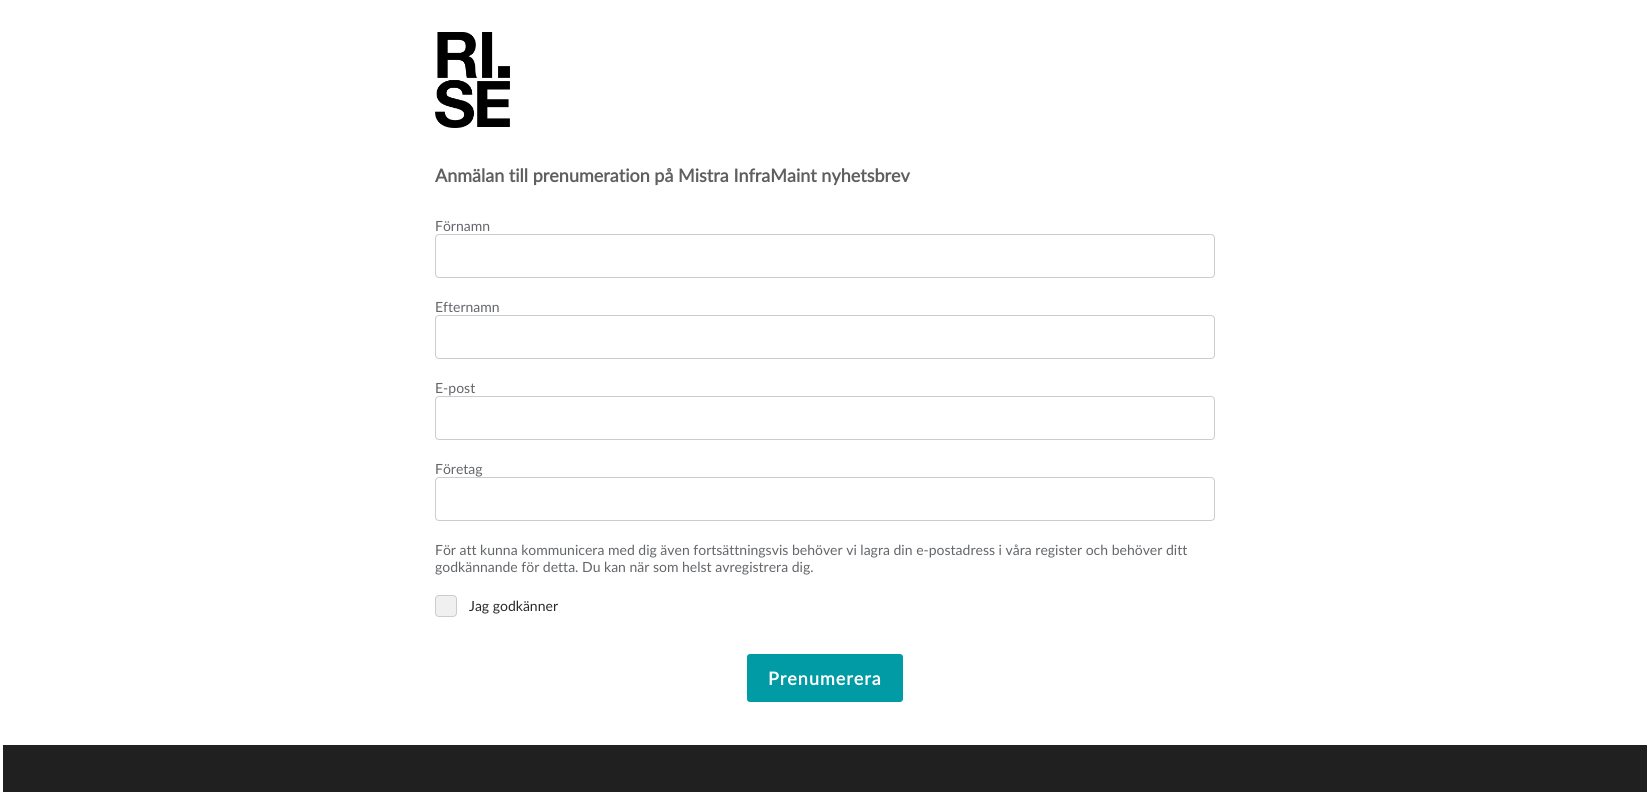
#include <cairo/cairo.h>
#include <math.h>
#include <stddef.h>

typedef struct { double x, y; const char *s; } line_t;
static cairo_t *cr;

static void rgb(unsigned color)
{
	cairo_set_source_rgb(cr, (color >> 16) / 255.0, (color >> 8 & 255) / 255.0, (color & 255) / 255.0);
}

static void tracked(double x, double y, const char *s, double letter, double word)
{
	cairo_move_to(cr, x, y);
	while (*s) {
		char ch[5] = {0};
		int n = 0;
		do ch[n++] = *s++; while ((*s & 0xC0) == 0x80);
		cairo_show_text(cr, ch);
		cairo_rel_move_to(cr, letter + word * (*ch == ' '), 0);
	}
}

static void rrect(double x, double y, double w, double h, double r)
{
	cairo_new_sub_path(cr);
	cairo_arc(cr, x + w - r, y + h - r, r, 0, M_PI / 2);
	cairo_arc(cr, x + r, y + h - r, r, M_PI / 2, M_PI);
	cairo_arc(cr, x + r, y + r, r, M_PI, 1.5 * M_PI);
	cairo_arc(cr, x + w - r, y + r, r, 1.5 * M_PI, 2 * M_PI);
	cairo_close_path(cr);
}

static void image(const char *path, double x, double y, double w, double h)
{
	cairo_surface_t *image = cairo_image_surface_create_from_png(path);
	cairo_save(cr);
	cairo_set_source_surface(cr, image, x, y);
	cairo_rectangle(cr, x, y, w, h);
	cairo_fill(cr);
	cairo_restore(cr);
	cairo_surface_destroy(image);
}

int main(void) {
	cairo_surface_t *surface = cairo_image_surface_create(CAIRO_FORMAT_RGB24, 1650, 792);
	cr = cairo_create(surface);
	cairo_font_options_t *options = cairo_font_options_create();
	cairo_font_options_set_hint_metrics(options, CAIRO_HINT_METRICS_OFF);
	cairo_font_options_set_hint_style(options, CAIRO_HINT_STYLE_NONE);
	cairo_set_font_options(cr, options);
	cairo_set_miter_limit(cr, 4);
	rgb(0xffffff);
	cairo_paint(cr);
	image("img/1.png", 435, 32, 75, 96);
	rrect(435.5, 234.5, 779, 43, 3.5);
	rgb(0xcccccc);
	cairo_set_line_width(cr, 1);
	cairo_stroke(cr);
	rrect(435.5, 315.5, 779, 43, 3.5);
	cairo_stroke(cr);
	rrect(435.5, 396.5, 779, 43, 3.5);
	cairo_stroke(cr);
	rrect(435.5, 477.5, 779, 43, 3.5);
	cairo_stroke(cr);
	rgb(0xf0f0f0);
	rrect(435.5, 595.5, 21, 21, 3.5);
	cairo_fill_preserve(cr);
	rgb(0xcccccc);
	cairo_stroke(cr);
	rgb(0x009ba5);
	rrect(748.5, 655.5, 153, 45, 1.5);
	cairo_fill_preserve(cr);
	cairo_set_line_width(cr, 3);
	cairo_stroke(cr);
	rgb(0x202020);
	cairo_rectangle(cr, 3, 745, 1644, 47);
	cairo_fill(cr);
	cairo_select_font_face(cr, "Lato", CAIRO_FONT_SLANT_NORMAL, CAIRO_FONT_WEIGHT_BOLD);
	cairo_set_font_size(cr, 18);
	rgb(0x5f5f5f);
	cairo_move_to(cr, 435, 182);
	cairo_show_text(cr, "Anmälan till prenumeration på Mistra InfraMaint nyhetsbrev");
	cairo_select_font_face(cr, "Lato", CAIRO_FONT_SLANT_NORMAL, CAIRO_FONT_WEIGHT_NORMAL);
	cairo_set_font_size(cr, 14);
	rgb(0x63666a);
	{
		static const line_t items[] = {
			{435, 231, "Förnamn"},
			{435, 312, "Efternamn"},
			{435, 393, "E-post"},
			{435, 474, "Företag"},
			{435, 555, "För att kunna kommunicera med dig även fortsättningsvis behöver vi lagra din e-postadress i våra register och behöver ditt"},
			{435, 572, "godkännande för detta. Du kan när som helst avregistrera dig."},
		};
		for (size_t i = 0; i < sizeof items / sizeof *items; i++) {
			cairo_move_to(cr, items[i].x, items[i].y);
			cairo_show_text(cr, items[i].s);
		}
	}
	rgb(0x292929);
	cairo_move_to(cr, 469, 611);
	cairo_show_text(cr, "Jag godkänner");
	cairo_select_font_face(cr, "Lato", CAIRO_FONT_SLANT_NORMAL, CAIRO_FONT_WEIGHT_BOLD);
	cairo_set_font_size(cr, 18);
	rgb(0xffffff);
	tracked(768, 685, "Prenumerera", 1, 0);
	cairo_surface_write_to_png(surface, "page.png");
	cairo_font_options_destroy(options);
	cairo_destroy(cr);
	cairo_surface_destroy(surface);
	return 0;
}
